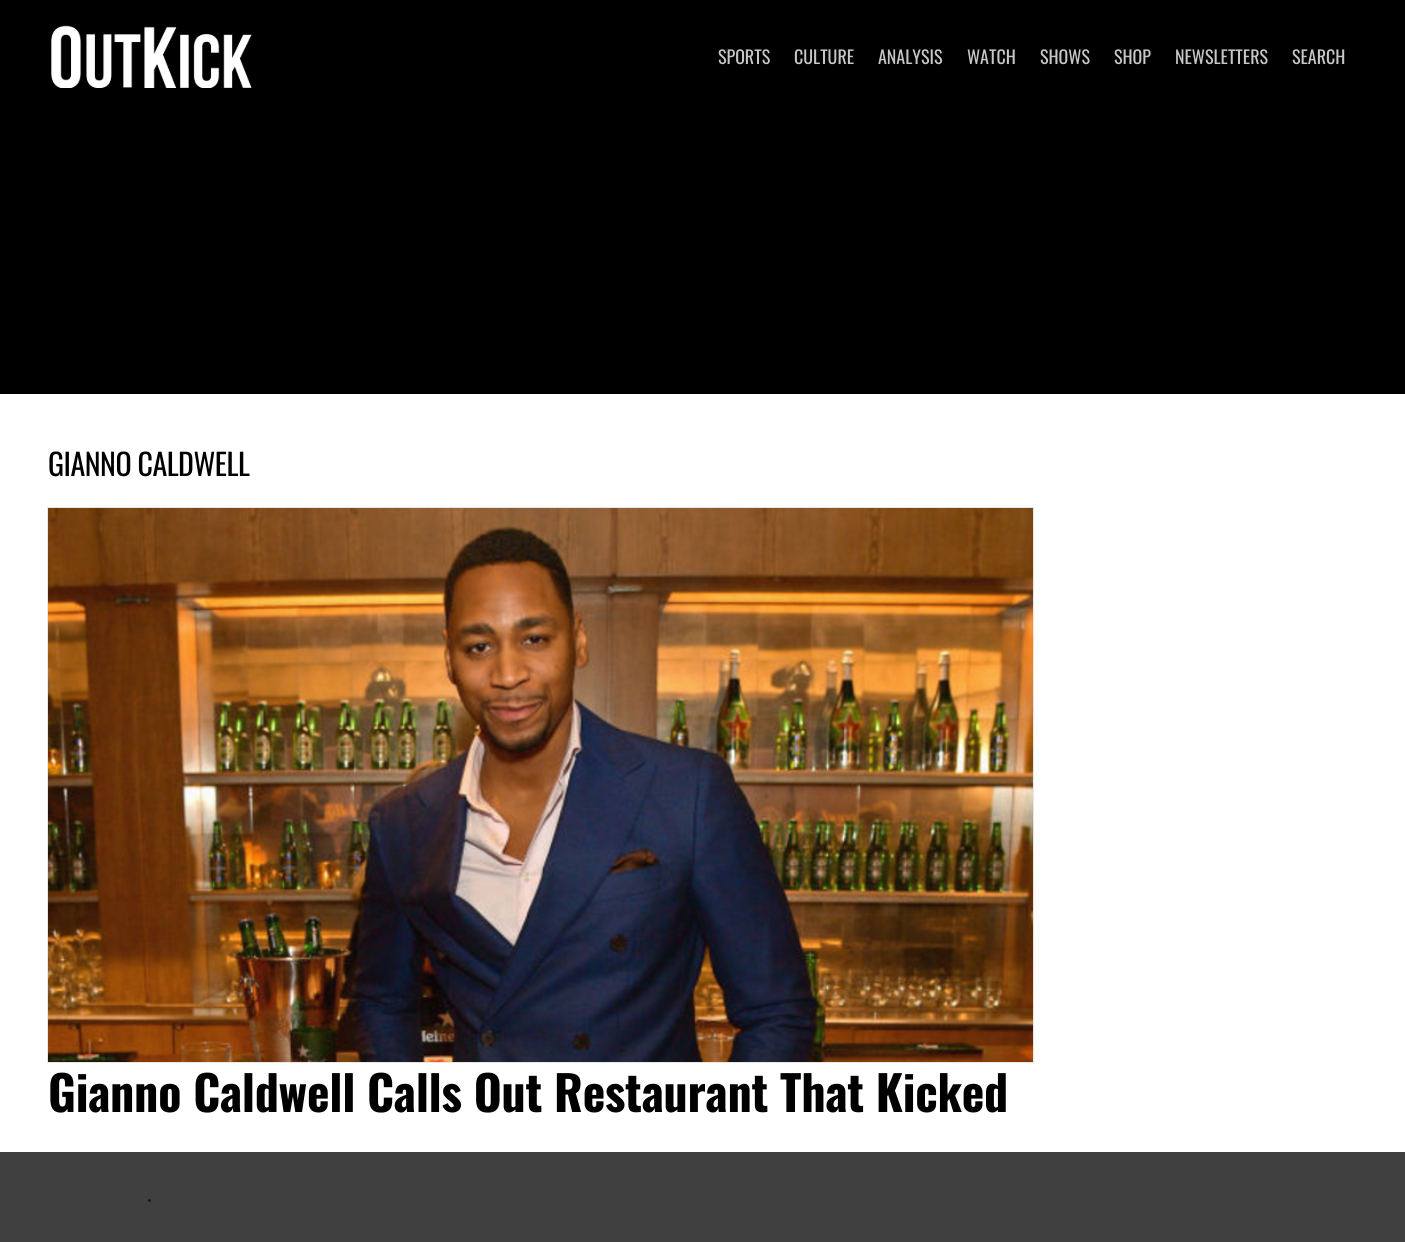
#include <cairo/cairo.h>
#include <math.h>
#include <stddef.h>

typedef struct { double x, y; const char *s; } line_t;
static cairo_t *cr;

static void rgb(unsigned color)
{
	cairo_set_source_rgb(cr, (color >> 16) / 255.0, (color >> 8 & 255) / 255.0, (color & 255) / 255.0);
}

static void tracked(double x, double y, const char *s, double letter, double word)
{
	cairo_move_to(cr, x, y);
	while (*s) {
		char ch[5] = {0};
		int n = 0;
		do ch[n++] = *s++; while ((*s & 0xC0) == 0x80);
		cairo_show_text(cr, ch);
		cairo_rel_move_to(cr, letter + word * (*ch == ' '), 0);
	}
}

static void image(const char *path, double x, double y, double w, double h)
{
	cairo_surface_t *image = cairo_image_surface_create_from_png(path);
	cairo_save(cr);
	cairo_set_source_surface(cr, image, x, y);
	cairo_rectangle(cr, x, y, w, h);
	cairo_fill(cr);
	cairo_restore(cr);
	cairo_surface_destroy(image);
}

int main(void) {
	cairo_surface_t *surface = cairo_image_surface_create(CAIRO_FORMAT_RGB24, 1405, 1242);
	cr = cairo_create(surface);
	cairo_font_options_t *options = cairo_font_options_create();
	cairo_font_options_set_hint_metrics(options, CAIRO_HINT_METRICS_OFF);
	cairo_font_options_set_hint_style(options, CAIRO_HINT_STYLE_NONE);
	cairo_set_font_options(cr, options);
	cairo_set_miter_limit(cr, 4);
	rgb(0xffffff);
	cairo_paint(cr);
	rgb(0x000000);
	cairo_rectangle(cr, 0, 0, 1405, 394);
	cairo_fill(cr);
	image("img/1.png", 51, 25, 201, 63);
	image("img/2.png", 48, 508, 985, 554);
	cairo_rectangle(cr, 47.5, 507.5, 986, 555);
	rgb(0xe6e6e6);
	cairo_set_line_width(cr, 1);
	cairo_stroke(cr);
	rgb(0x666666);
	cairo_arc(cr, 149.5, 1200.5, 1.5, 0, 2 * M_PI);
	cairo_fill(cr);
	cairo_set_source_rgba(cr, 0, 0, 0, 0.75);
	cairo_rectangle(cr, 0, 1152, 1405, 90);
	cairo_fill(cr);
	cairo_select_font_face(cr, "Oswald", CAIRO_FONT_SLANT_NORMAL, CAIRO_FONT_WEIGHT_NORMAL);
	cairo_set_font_size(cr, 18);
	rgb(0xc7c7c7);
	{
		static const line_t items[] = {
			{718, 64, "SPORTS"},
			{794, 64, "CULTURE"},
			{878, 64, "ANALYSIS"},
			{967, 64, "WATCH"},
			{1040, 64, "SHOWS"},
			{1114, 64, "SHOP"},
			{1175, 64, "NEWSLETTERS"},
			{1292, 64, "SEARCH"},
		};
		for (size_t i = 0; i < sizeof items / sizeof *items; i++) {
			cairo_move_to(cr, items[i].x, items[i].y);
			cairo_show_text(cr, items[i].s);
		}
	}
	cairo_set_font_size(cr, 30);
	rgb(0x000000);
	tracked(48, 476, "GIANNO CALDWELL", -0.5, 0);
	cairo_select_font_face(cr, "Oswald", CAIRO_FONT_SLANT_NORMAL, CAIRO_FONT_WEIGHT_BOLD);
	cairo_set_font_size(cr, 48);
	tracked(48, 1112, "Gianno Caldwell Calls Out Restaurant That Kicked", -0.25, 0);
	cairo_surface_write_to_png(surface, "page.png");
	cairo_font_options_destroy(options);
	cairo_destroy(cr);
	cairo_surface_destroy(surface);
	return 0;
}
